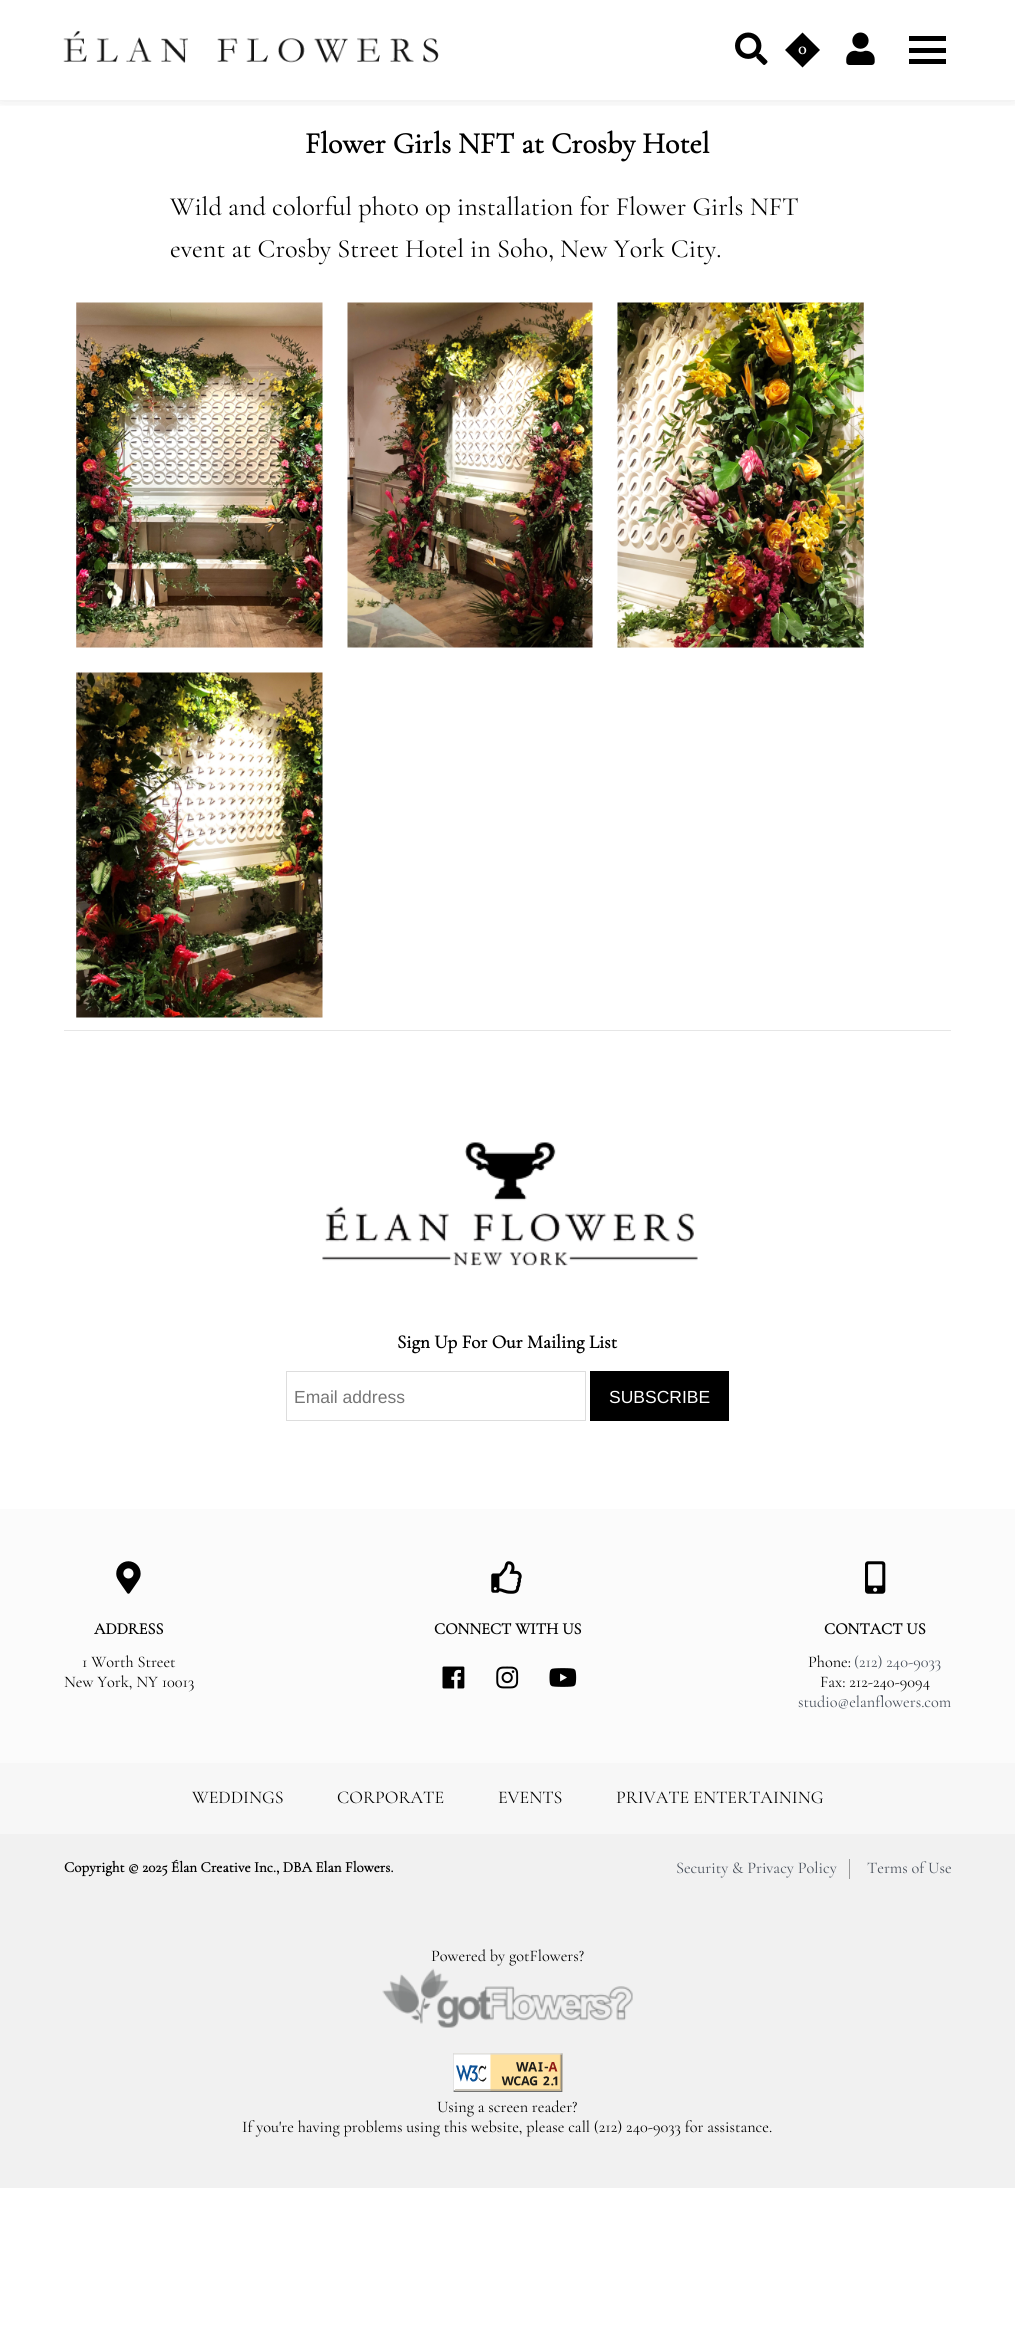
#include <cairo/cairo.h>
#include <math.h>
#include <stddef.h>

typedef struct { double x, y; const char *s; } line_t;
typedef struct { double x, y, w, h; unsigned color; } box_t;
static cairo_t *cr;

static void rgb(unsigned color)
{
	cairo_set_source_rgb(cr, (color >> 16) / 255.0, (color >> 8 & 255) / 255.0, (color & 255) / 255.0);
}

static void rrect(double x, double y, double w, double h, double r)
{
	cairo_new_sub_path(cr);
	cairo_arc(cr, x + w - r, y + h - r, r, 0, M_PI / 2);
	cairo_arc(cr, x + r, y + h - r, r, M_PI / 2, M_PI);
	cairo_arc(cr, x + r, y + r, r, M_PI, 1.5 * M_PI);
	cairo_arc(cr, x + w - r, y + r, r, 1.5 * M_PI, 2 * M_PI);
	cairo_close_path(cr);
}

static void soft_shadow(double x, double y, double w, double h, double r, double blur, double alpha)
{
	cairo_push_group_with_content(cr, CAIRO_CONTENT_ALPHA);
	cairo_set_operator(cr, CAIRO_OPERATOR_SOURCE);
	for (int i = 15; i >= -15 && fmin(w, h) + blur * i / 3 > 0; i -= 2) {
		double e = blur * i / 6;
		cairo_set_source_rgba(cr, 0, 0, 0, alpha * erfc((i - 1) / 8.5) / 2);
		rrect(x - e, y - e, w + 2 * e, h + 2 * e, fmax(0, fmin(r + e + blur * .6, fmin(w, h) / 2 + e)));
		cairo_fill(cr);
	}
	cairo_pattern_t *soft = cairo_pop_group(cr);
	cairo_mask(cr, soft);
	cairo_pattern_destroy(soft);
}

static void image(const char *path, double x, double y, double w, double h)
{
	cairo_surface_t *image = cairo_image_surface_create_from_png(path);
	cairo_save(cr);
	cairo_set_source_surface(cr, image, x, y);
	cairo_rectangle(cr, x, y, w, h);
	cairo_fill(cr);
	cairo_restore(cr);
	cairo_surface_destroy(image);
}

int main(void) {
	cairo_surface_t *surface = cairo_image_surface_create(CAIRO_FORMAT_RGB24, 1015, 2350);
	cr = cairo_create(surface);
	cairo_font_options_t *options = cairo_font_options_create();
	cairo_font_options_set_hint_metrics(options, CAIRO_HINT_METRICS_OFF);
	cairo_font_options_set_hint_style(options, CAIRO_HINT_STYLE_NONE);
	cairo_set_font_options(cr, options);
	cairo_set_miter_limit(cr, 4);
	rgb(0xffffff);
	cairo_paint(cr);
	cairo_save(cr);
	cairo_rectangle(cr, 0, 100, 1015, 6);
	cairo_clip(cr);
	rgb(0x000000);
	soft_shadow(0, -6, 1015, 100, 0, 9.5, 0.2);
	cairo_restore(cr);
	image("img/1.png", 63, 31, 376, 32);
	image("img/2.png", 735, 32, 33, 33);
	rgb(0x000000);
	cairo_new_path(cr);
	cairo_move_to(cr, 802.5, 32.5);
	cairo_line_to(cr, 820, 50);
	cairo_line_to(cr, 802.5, 67.5);
	cairo_line_to(cr, 785, 50);
	cairo_close_path(cr);
	cairo_fill(cr);
	image("img/3.png", 846, 32, 29, 33);
	{
		static const box_t items[] = {
			{909, 36, 37, 5, 0x000000},
			{909, 48, 37, 5, 0x000000},
			{909, 59, 37, 5, 0x000000},
		};
		for (size_t i = 0; i < sizeof items / sizeof *items; i++) {
			rgb(items[i].color);
			cairo_rectangle(cr, items[i].x, items[i].y, items[i].w, items[i].h);
			cairo_fill(cr);
		}
	}
	image("img/4.png", 76, 302, 247, 346);
	image("img/5.png", 347, 302, 246, 346);
	image("img/6.png", 617, 302, 247, 346);
	image("img/7.png", 76, 672, 247, 346);
	rgb(0xe6e6e6);
	cairo_rectangle(cr, 64, 1030, 887, 1);
	cairo_fill(cr);
	rgb(0xf1f1f1);
	cairo_rectangle(cr, 0, 1834, 1015, 354);
	cairo_fill(cr);
	image("img/8.png", 322, 1142, 376, 124);
	cairo_rectangle(cr, 286.5, 1371.5, 299, 49);
	rgb(0xdddddd);
	cairo_set_line_width(cr, 1);
	cairo_stroke(cr);
	rgb(0x000000);
	cairo_rectangle(cr, 590, 1371, 139, 50);
	cairo_fill(cr);
	rgb(0xfbfbfb);
	cairo_rectangle(cr, 0, 1509, 1015, 254);
	cairo_fill(cr);
	image("img/9.png", 116, 1561, 25, 33);
	image("img/10.png", 491, 1561, 31, 33);
	image("img/11.png", 442, 1666, 23, 23);
	image("img/12.png", 496, 1666, 23, 23);
	image("img/13.png", 549, 1668, 28, 19);
	image("img/14.png", 865, 1561, 21, 33);
	rgb(0xf7f7f7);
	cairo_rectangle(cr, 0, 1763, 1015, 71);
	cairo_fill(cr);
	rgb(0x999999);
	cairo_rectangle(cr, 849, 1859, 1, 20);
	cairo_fill(cr);
	image("img/15.png", 382, 1968, 251, 60);
	image("img/16.png", 453, 2053, 110, 39);
	cairo_select_font_face(cr, "Cormorant Garamond", CAIRO_FONT_SLANT_NORMAL, CAIRO_FONT_WEIGHT_BOLD);
	cairo_set_font_size(cr, 17.5);
	rgb(0xffffff);
	cairo_move_to(cr, 798, 54);
	cairo_show_text(cr, "0");
	cairo_set_font_size(cr, 30);
	rgb(0x000000);
	cairo_move_to(cr, 305, 153);
	cairo_show_text(cr, "Flower Girls NFT at Crosby Hotel");
	cairo_select_font_face(cr, "Cormorant Garamond Light", CAIRO_FONT_SLANT_NORMAL, CAIRO_FONT_WEIGHT_NORMAL);
	cairo_set_font_size(cr, 26.25);
	cairo_move_to(cr, 170, 215);
	cairo_show_text(cr, "Wild and colorful photo op installation for Flower Girls NFT");
	cairo_move_to(cr, 170, 257);
	cairo_show_text(cr, "event at Crosby Street Hotel in Soho, New York City.");
	cairo_select_font_face(cr, "Cormorant Garamond", CAIRO_FONT_SLANT_NORMAL, CAIRO_FONT_WEIGHT_BOLD);
	cairo_set_font_size(cr, 19);
	cairo_move_to(cr, 397, 1348);
	cairo_show_text(cr, "Sign Up For Our Mailing List");
	cairo_select_font_face(cr, "Liberation Sans", CAIRO_FONT_SLANT_NORMAL, CAIRO_FONT_WEIGHT_NORMAL);
	cairo_set_font_size(cr, 17.5);
	rgb(0x757575);
	cairo_move_to(cr, 294, 1403);
	cairo_show_text(cr, "Email address");
	rgb(0xffffff);
	cairo_move_to(cr, 609, 1403);
	cairo_show_text(cr, "SUBSCRIBE");
	cairo_select_font_face(cr, "Cormorant Garamond", CAIRO_FONT_SLANT_NORMAL, CAIRO_FONT_WEIGHT_BOLD);
	cairo_set_font_size(cr, 16.25);
	rgb(0x000000);
	cairo_move_to(cr, 94, 1634);
	cairo_show_text(cr, "ADDRESS");
	cairo_select_font_face(cr, "Cormorant Garamond Light", CAIRO_FONT_SLANT_NORMAL, CAIRO_FONT_WEIGHT_NORMAL);
	cairo_move_to(cr, 82, 1667);
	cairo_show_text(cr, "1 Worth Street");
	cairo_move_to(cr, 64, 1687);
	cairo_show_text(cr, "New York, NY 10013");
	cairo_select_font_face(cr, "Cormorant Garamond", CAIRO_FONT_SLANT_NORMAL, CAIRO_FONT_WEIGHT_BOLD);
	cairo_move_to(cr, 434, 1634);
	cairo_show_text(cr, "CONNECT WITH US");
	cairo_move_to(cr, 824, 1634);
	cairo_show_text(cr, "CONTACT US");
	cairo_select_font_face(cr, "Cormorant Garamond Light", CAIRO_FONT_SLANT_NORMAL, CAIRO_FONT_WEIGHT_NORMAL);
	cairo_move_to(cr, 808, 1667);
	cairo_show_text(cr, "Phone:");
	rgb(0x474f5a);
	cairo_move_to(cr, 854, 1667);
	cairo_show_text(cr, "(212) 240-9033");
	rgb(0x000000);
	cairo_move_to(cr, 820, 1687);
	cairo_show_text(cr, "Fax: 212-240-9094");
	rgb(0x474f5a);
	cairo_move_to(cr, 798, 1707);
	cairo_show_text(cr, "studio@elanflowers.com");
	cairo_set_font_size(cr, 17.9);
	rgb(0x000000);
	{
		static const line_t items[] = {
			{192, 1803, "WEDDINGS"},
			{337, 1803, "CORPORATE"},
			{498, 1803, "EVENTS"},
			{616, 1803, "PRIVATE ENTERTAINING"},
		};
		for (size_t i = 0; i < sizeof items / sizeof *items; i++) {
			cairo_move_to(cr, items[i].x, items[i].y);
			cairo_show_text(cr, items[i].s);
		}
	}
	cairo_select_font_face(cr, "Cormorant Garamond", CAIRO_FONT_SLANT_NORMAL, CAIRO_FONT_WEIGHT_BOLD);
	cairo_set_font_size(cr, 15);
	cairo_move_to(cr, 64, 1872);
	cairo_show_text(cr, "Copyright © 2025 Élan Creative Inc., DBA Elan Flowers.");
	cairo_select_font_face(cr, "Cormorant Garamond Light", CAIRO_FONT_SLANT_NORMAL, CAIRO_FONT_WEIGHT_NORMAL);
	cairo_set_font_size(cr, 16.25);
	rgb(0x474f5a);
	cairo_move_to(cr, 676, 1873);
	cairo_show_text(cr, "Security & Privacy Policy");
	cairo_move_to(cr, 867, 1873);
	cairo_show_text(cr, "Terms of Use");
	rgb(0x000000);
	{
		static const line_t items[] = {
			{431, 1961, "Powered by gotFlowers?"},
			{437, 2112, "Using a screen reader?"},
			{242, 2132, "If you're having problems using this website, please call (212) 240-9033 for assistance."},
		};
		for (size_t i = 0; i < sizeof items / sizeof *items; i++) {
			cairo_move_to(cr, items[i].x, items[i].y);
			cairo_show_text(cr, items[i].s);
		}
	}
	cairo_surface_write_to_png(surface, "page.png");
	cairo_font_options_destroy(options);
	cairo_destroy(cr);
	cairo_surface_destroy(surface);
	return 0;
}
